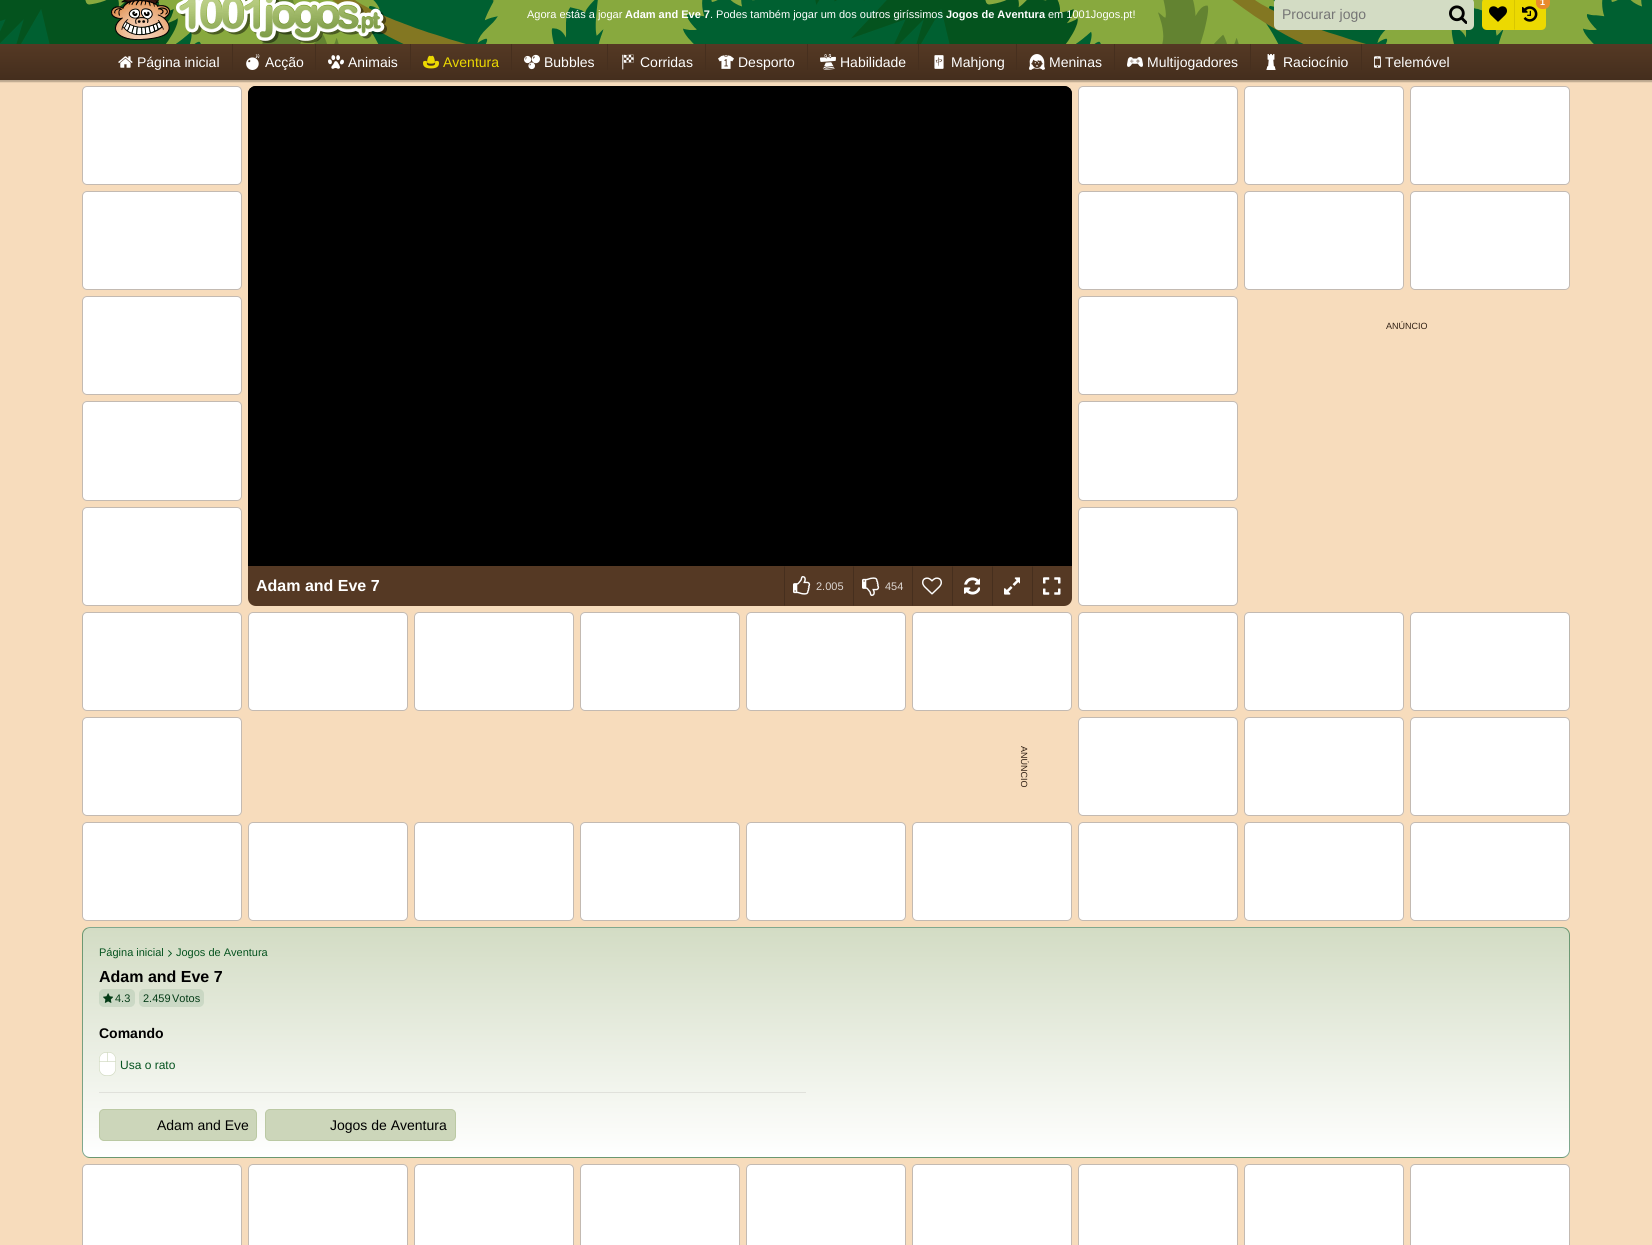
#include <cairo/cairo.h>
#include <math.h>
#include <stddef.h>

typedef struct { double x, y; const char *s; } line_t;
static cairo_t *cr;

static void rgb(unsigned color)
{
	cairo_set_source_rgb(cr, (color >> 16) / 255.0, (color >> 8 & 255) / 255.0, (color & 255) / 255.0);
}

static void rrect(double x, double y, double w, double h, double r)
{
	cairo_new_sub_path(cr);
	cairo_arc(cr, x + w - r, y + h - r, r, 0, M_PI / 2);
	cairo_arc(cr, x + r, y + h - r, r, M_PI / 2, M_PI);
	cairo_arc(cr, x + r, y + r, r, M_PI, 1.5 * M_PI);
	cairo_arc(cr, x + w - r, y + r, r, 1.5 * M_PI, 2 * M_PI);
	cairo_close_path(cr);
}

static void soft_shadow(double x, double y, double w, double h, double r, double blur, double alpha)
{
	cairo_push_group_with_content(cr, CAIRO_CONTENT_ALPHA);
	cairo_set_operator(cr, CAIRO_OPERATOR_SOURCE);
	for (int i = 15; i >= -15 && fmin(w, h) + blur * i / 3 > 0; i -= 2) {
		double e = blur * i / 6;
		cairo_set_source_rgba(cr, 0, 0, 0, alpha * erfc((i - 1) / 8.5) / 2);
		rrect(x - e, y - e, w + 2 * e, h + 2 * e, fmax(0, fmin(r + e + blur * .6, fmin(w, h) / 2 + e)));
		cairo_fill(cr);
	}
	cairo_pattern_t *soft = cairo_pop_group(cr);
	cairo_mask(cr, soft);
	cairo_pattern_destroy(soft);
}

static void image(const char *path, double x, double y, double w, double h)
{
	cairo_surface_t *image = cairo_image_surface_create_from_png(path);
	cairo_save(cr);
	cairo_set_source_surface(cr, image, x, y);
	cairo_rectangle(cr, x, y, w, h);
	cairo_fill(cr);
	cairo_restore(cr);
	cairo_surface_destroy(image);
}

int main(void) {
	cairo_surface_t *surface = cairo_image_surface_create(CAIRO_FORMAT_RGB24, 1652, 1245);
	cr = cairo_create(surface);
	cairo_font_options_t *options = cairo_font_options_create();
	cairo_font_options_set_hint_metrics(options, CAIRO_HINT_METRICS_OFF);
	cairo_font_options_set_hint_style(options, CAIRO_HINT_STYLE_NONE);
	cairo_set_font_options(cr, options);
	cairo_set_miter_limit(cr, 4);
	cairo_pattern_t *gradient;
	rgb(0xf7dcbc);
	cairo_paint(cr);
	rgb(0x000000);
	soft_shadow(-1, 44, 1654, 38, 0, 0.5, 0.25);
	rgb(0x638331);
	cairo_rectangle(cr, 262, 0, 977, 44);
	cairo_fill(cr);
	image("img/1.png", 0, 0, 1652, 44);
	image("img/2.png", 111, 0, 276, 43);
	rgb(0xecd901);
	cairo_new_path(cr);
	cairo_move_to(cr, 1487, -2);
	cairo_line_to(cr, 1514, -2);
	cairo_line_to(cr, 1514, 30);
	cairo_line_to(cr, 1487, 30);
	cairo_curve_to(cr, 1484, 30, 1482, 28, 1482, 25);
	cairo_line_to(cr, 1482, 3);
	cairo_curve_to(cr, 1482, 0, 1484, -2, 1487, -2);
	cairo_close_path(cr);
	cairo_fill(cr);
	image("img/3.png", 1489, 6, 18, 16);
	cairo_new_path(cr);
	cairo_move_to(cr, 1514, -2);
	cairo_line_to(cr, 1541, -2);
	cairo_curve_to(cr, 1544, -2, 1546, 0, 1546, 3);
	cairo_line_to(cr, 1546, 25);
	cairo_curve_to(cr, 1546, 28, 1544, 30, 1541, 30);
	cairo_line_to(cr, 1514, 30);
	cairo_close_path(cr);
	cairo_fill(cr);
	rgb(0xd8c601);
	cairo_new_path(cr);
	cairo_move_to(cr, 1514, -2);
	cairo_line_to(cr, 1514, 30);
	cairo_line_to(cr, 1515, 29);
	cairo_line_to(cr, 1515, -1);
	cairo_close_path(cr);
	cairo_fill(cr);
	image("img/4.png", 1522, 6, 16, 16);
	rgb(0xe98b2c);
	rrect(1536, -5, 14, 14, 6);
	cairo_fill(cr);
	rgb(0xd3dcc4);
	rrect(1274, -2, 200, 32, 5);
	cairo_fill(cr);
	image("img/5.png", 1449, 5, 18, 19);
	gradient = cairo_pattern_create_linear(826, 44, 826, 80);
	cairo_pattern_add_color_stop_rgba(gradient, 0, 0.333, 0.224, 0.141, 1);
	cairo_pattern_add_color_stop_rgba(gradient, 1, 0.267, 0.18, 0.114, 1);
	cairo_set_source(cr, gradient);
	cairo_pattern_destroy(gradient);
	cairo_rectangle(cr, 0, 44, 1652, 36);
	cairo_fill(cr);
	image("img/6.png", 118, 56, 15, 12);
	rgb(0x462f1e);
	cairo_rectangle(cr, 232, 44, 1, 26);
	cairo_fill(cr);
	image("img/7.png", 246, 54, 14, 16);
	cairo_rectangle(cr, 315, 44, 1, 26);
	cairo_fill(cr);
	image("img/8.png", 328, 55, 16, 14);
	cairo_rectangle(cr, 410, 44, 1, 26);
	cairo_fill(cr);
	image("img/9.png", 423, 55, 16, 14);
	cairo_rectangle(cr, 511, 44, 1, 26);
	cairo_fill(cr);
	image("img/10.png", 524, 54, 16, 16);
	cairo_rectangle(cr, 607, 44, 1, 26);
	cairo_fill(cr);
	image("img/11.png", 622, 54, 12, 16);
	cairo_rectangle(cr, 705, 44, 1, 26);
	cairo_fill(cr);
	image("img/12.png", 718, 55, 16, 14);
	cairo_rectangle(cr, 807, 44, 1, 26);
	cairo_fill(cr);
	image("img/13.png", 820, 54, 16, 16);
	cairo_rectangle(cr, 918, 44, 1, 26);
	cairo_fill(cr);
	image("img/14.png", 934, 55, 10, 14);
	cairo_rectangle(cr, 1016, 44, 1, 26);
	cairo_fill(cr);
	image("img/15.png", 1029, 54, 16, 16);
	cairo_rectangle(cr, 1114, 44, 1, 26);
	cairo_fill(cr);
	image("img/16.png", 1127, 57, 16, 10);
	cairo_rectangle(cr, 1250, 44, 1, 26);
	cairo_fill(cr);
	image("img/17.png", 1266, 54, 10, 16);
	cairo_rectangle(cr, 1361, 44, 1, 26);
	cairo_fill(cr);
	image("img/18.png", 1374, 56, 7, 12);
	rgb(0xffffff);
	rrect(82, 86, 160, 99, 5);
	cairo_fill(cr);
	rrect(82.5, 86.5, 159, 98, 4.5);
	cairo_set_source_rgba(cr, 0.333, 0.224, 0.141, 0.35);
	cairo_set_line_width(cr, 1);
	cairo_stroke(cr);
	rgb(0xffffff);
	rrect(1078, 86, 160, 99, 5);
	cairo_fill(cr);
	rrect(1078.5, 86.5, 159, 98, 4.5);
	cairo_set_source_rgba(cr, 0.333, 0.224, 0.141, 0.35);
	cairo_stroke(cr);
	rgb(0xffffff);
	rrect(1244, 86, 160, 99, 5);
	cairo_fill(cr);
	rrect(1244.5, 86.5, 159, 98, 4.5);
	cairo_set_source_rgba(cr, 0.333, 0.224, 0.141, 0.35);
	cairo_stroke(cr);
	rgb(0xffffff);
	rrect(1410, 86, 160, 99, 5);
	cairo_fill(cr);
	rrect(1410.5, 86.5, 159, 98, 4.5);
	cairo_set_source_rgba(cr, 0.333, 0.224, 0.141, 0.35);
	cairo_stroke(cr);
	rgb(0xffffff);
	rrect(82, 191, 160, 99, 5);
	cairo_fill(cr);
	rrect(82.5, 191.5, 159, 98, 4.5);
	cairo_set_source_rgba(cr, 0.333, 0.224, 0.141, 0.35);
	cairo_stroke(cr);
	rgb(0xffffff);
	rrect(1078, 191, 160, 99, 5);
	cairo_fill(cr);
	rrect(1078.5, 191.5, 159, 98, 4.5);
	cairo_set_source_rgba(cr, 0.333, 0.224, 0.141, 0.35);
	cairo_stroke(cr);
	rgb(0xffffff);
	rrect(1244, 191, 160, 99, 5);
	cairo_fill(cr);
	rrect(1244.5, 191.5, 159, 98, 4.5);
	cairo_set_source_rgba(cr, 0.333, 0.224, 0.141, 0.35);
	cairo_stroke(cr);
	rgb(0xffffff);
	rrect(1410, 191, 160, 99, 5);
	cairo_fill(cr);
	rrect(1410.5, 191.5, 159, 98, 4.5);
	cairo_set_source_rgba(cr, 0.333, 0.224, 0.141, 0.35);
	cairo_stroke(cr);
	rgb(0xffffff);
	rrect(82, 296, 160, 99, 5);
	cairo_fill(cr);
	rrect(82.5, 296.5, 159, 98, 4.5);
	cairo_set_source_rgba(cr, 0.333, 0.224, 0.141, 0.35);
	cairo_stroke(cr);
	rgb(0xffffff);
	rrect(1078, 296, 160, 99, 5);
	cairo_fill(cr);
	rrect(1078.5, 296.5, 159, 98, 4.5);
	cairo_set_source_rgba(cr, 0.333, 0.224, 0.141, 0.35);
	cairo_stroke(cr);
	rgb(0xffffff);
	rrect(82, 401, 160, 100, 5);
	cairo_fill(cr);
	rrect(82.5, 401.5, 159, 99, 4.5);
	cairo_set_source_rgba(cr, 0.333, 0.224, 0.141, 0.35);
	cairo_stroke(cr);
	rgb(0xffffff);
	rrect(1078, 401, 160, 100, 5);
	cairo_fill(cr);
	rrect(1078.5, 401.5, 159, 99, 4.5);
	cairo_set_source_rgba(cr, 0.333, 0.224, 0.141, 0.35);
	cairo_stroke(cr);
	rgb(0xffffff);
	rrect(82, 507, 160, 99, 5);
	cairo_fill(cr);
	rrect(82.5, 507.5, 159, 98, 4.5);
	cairo_set_source_rgba(cr, 0.333, 0.224, 0.141, 0.35);
	cairo_stroke(cr);
	rgb(0x000000);
	cairo_new_path(cr);
	cairo_move_to(cr, 256, 86);
	cairo_line_to(cr, 1064, 86);
	cairo_curve_to(cr, 1068.5, 86, 1072, 89.5, 1072, 94);
	cairo_line_to(cr, 1072, 566);
	cairo_line_to(cr, 248, 566);
	cairo_line_to(cr, 248, 94);
	cairo_curve_to(cr, 248, 89.5, 251.5, 86, 256, 86);
	cairo_close_path(cr);
	cairo_fill(cr);
	image("img/19.png", 248, 86, 824, 8);
	rgb(0x553924);
	cairo_new_path(cr);
	cairo_move_to(cr, 248, 566);
	cairo_line_to(cr, 1072, 566);
	cairo_line_to(cr, 1072, 598);
	cairo_curve_to(cr, 1072, 602.5, 1068.5, 606, 1064, 606);
	cairo_line_to(cr, 256, 606);
	cairo_curve_to(cr, 251.5, 606, 248, 602.5, 248, 598);
	cairo_close_path(cr);
	cairo_fill(cr);
	rgb(0x462f1e);
	cairo_new_path(cr);
	cairo_move_to(cr, 784, 606);
	cairo_line_to(cr, 784, 566);
	cairo_line_to(cr, 785, 567);
	cairo_line_to(cr, 785, 605);
	cairo_close_path(cr);
	cairo_fill(cr);
	image("img/20.png", 793, 576, 18, 19);
	cairo_new_path(cr);
	cairo_move_to(cr, 853, 606);
	cairo_line_to(cr, 853, 566);
	cairo_line_to(cr, 854, 567);
	cairo_line_to(cr, 854, 605);
	cairo_close_path(cr);
	cairo_move_to(cr, 912, 606);
	cairo_line_to(cr, 912, 566);
	cairo_line_to(cr, 913, 567);
	cairo_line_to(cr, 913, 605);
	cairo_close_path(cr);
	cairo_fill(cr);
	image("img/21.png", 862, 577, 18, 19);
	image("img/22.png", 922, 577, 20, 18);
	cairo_new_path(cr);
	cairo_move_to(cr, 952, 606);
	cairo_line_to(cr, 952, 566);
	cairo_line_to(cr, 953, 567);
	cairo_line_to(cr, 953, 605);
	cairo_close_path(cr);
	cairo_move_to(cr, 992, 606);
	cairo_line_to(cr, 992, 566);
	cairo_line_to(cr, 993, 567);
	cairo_line_to(cr, 993, 605);
	cairo_close_path(cr);
	cairo_fill(cr);
	image("img/23.png", 964, 577, 16, 18);
	image("img/24.png", 1004, 577, 16, 18);
	cairo_new_path(cr);
	cairo_move_to(cr, 1032, 566);
	cairo_line_to(cr, 1032, 606);
	cairo_line_to(cr, 1033, 605);
	cairo_line_to(cr, 1033, 567);
	cairo_close_path(cr);
	cairo_fill(cr);
	image("img/25.png", 1043, 577, 18, 18);
	rgb(0xffffff);
	rrect(1078, 507, 160, 99, 5);
	cairo_fill(cr);
	rrect(1078.5, 507.5, 159, 98, 4.5);
	cairo_set_source_rgba(cr, 0.333, 0.224, 0.141, 0.35);
	cairo_stroke(cr);
	rgb(0xffffff);
	rrect(82, 612, 160, 99, 5);
	cairo_fill(cr);
	rrect(82.5, 612.5, 159, 98, 4.5);
	cairo_set_source_rgba(cr, 0.333, 0.224, 0.141, 0.35);
	cairo_stroke(cr);
	rgb(0xffffff);
	rrect(248, 612, 160, 99, 5);
	cairo_fill(cr);
	rrect(248.5, 612.5, 159, 98, 4.5);
	cairo_set_source_rgba(cr, 0.333, 0.224, 0.141, 0.35);
	cairo_stroke(cr);
	rgb(0xffffff);
	rrect(414, 612, 160, 99, 5);
	cairo_fill(cr);
	rrect(414.5, 612.5, 159, 98, 4.5);
	cairo_set_source_rgba(cr, 0.333, 0.224, 0.141, 0.35);
	cairo_stroke(cr);
	rgb(0xffffff);
	rrect(580, 612, 160, 99, 5);
	cairo_fill(cr);
	rrect(580.5, 612.5, 159, 98, 4.5);
	cairo_set_source_rgba(cr, 0.333, 0.224, 0.141, 0.35);
	cairo_stroke(cr);
	rgb(0xffffff);
	rrect(746, 612, 160, 99, 5);
	cairo_fill(cr);
	rrect(746.5, 612.5, 159, 98, 4.5);
	cairo_set_source_rgba(cr, 0.333, 0.224, 0.141, 0.35);
	cairo_stroke(cr);
	rgb(0xffffff);
	rrect(912, 612, 160, 99, 5);
	cairo_fill(cr);
	rrect(912.5, 612.5, 159, 98, 4.5);
	cairo_set_source_rgba(cr, 0.333, 0.224, 0.141, 0.35);
	cairo_stroke(cr);
	rgb(0xffffff);
	rrect(1078, 612, 160, 99, 5);
	cairo_fill(cr);
	rrect(1078.5, 612.5, 159, 98, 4.5);
	cairo_set_source_rgba(cr, 0.333, 0.224, 0.141, 0.35);
	cairo_stroke(cr);
	rgb(0xffffff);
	rrect(1244, 612, 160, 99, 5);
	cairo_fill(cr);
	rrect(1244.5, 612.5, 159, 98, 4.5);
	cairo_set_source_rgba(cr, 0.333, 0.224, 0.141, 0.35);
	cairo_stroke(cr);
	rgb(0xffffff);
	rrect(1410, 612, 160, 99, 5);
	cairo_fill(cr);
	rrect(1410.5, 612.5, 159, 98, 4.5);
	cairo_set_source_rgba(cr, 0.333, 0.224, 0.141, 0.35);
	cairo_stroke(cr);
	rgb(0xffffff);
	rrect(82, 717, 160, 99, 5);
	cairo_fill(cr);
	rrect(82.5, 717.5, 159, 98, 4.5);
	cairo_set_source_rgba(cr, 0.333, 0.224, 0.141, 0.35);
	cairo_stroke(cr);
	rgb(0xffffff);
	rrect(1078, 717, 160, 99, 5);
	cairo_fill(cr);
	rrect(1078.5, 717.5, 159, 98, 4.5);
	cairo_set_source_rgba(cr, 0.333, 0.224, 0.141, 0.35);
	cairo_stroke(cr);
	rgb(0xffffff);
	rrect(1244, 717, 160, 99, 5);
	cairo_fill(cr);
	rrect(1244.5, 717.5, 159, 98, 4.5);
	cairo_set_source_rgba(cr, 0.333, 0.224, 0.141, 0.35);
	cairo_stroke(cr);
	rgb(0xffffff);
	rrect(1410, 717, 160, 99, 5);
	cairo_fill(cr);
	rrect(1410.5, 717.5, 159, 98, 4.5);
	cairo_set_source_rgba(cr, 0.333, 0.224, 0.141, 0.35);
	cairo_stroke(cr);
	rgb(0xffffff);
	rrect(82, 822, 160, 99, 5);
	cairo_fill(cr);
	rrect(82.5, 822.5, 159, 98, 4.5);
	cairo_set_source_rgba(cr, 0.333, 0.224, 0.141, 0.35);
	cairo_stroke(cr);
	rgb(0xffffff);
	rrect(248, 822, 160, 99, 5);
	cairo_fill(cr);
	rrect(248.5, 822.5, 159, 98, 4.5);
	cairo_set_source_rgba(cr, 0.333, 0.224, 0.141, 0.35);
	cairo_stroke(cr);
	rgb(0xffffff);
	rrect(414, 822, 160, 99, 5);
	cairo_fill(cr);
	rrect(414.5, 822.5, 159, 98, 4.5);
	cairo_set_source_rgba(cr, 0.333, 0.224, 0.141, 0.35);
	cairo_stroke(cr);
	rgb(0xffffff);
	rrect(580, 822, 160, 99, 5);
	cairo_fill(cr);
	rrect(580.5, 822.5, 159, 98, 4.5);
	cairo_set_source_rgba(cr, 0.333, 0.224, 0.141, 0.35);
	cairo_stroke(cr);
	rgb(0xffffff);
	rrect(746, 822, 160, 99, 5);
	cairo_fill(cr);
	rrect(746.5, 822.5, 159, 98, 4.5);
	cairo_set_source_rgba(cr, 0.333, 0.224, 0.141, 0.35);
	cairo_stroke(cr);
	rgb(0xffffff);
	rrect(912, 822, 160, 99, 5);
	cairo_fill(cr);
	rrect(912.5, 822.5, 159, 98, 4.5);
	cairo_set_source_rgba(cr, 0.333, 0.224, 0.141, 0.35);
	cairo_stroke(cr);
	rgb(0xffffff);
	rrect(1078, 822, 160, 99, 5);
	cairo_fill(cr);
	rrect(1078.5, 822.5, 159, 98, 4.5);
	cairo_set_source_rgba(cr, 0.333, 0.224, 0.141, 0.35);
	cairo_stroke(cr);
	rgb(0xffffff);
	rrect(1244, 822, 160, 99, 5);
	cairo_fill(cr);
	rrect(1244.5, 822.5, 159, 98, 4.5);
	cairo_set_source_rgba(cr, 0.333, 0.224, 0.141, 0.35);
	cairo_stroke(cr);
	rgb(0xffffff);
	rrect(1410, 822, 160, 99, 5);
	cairo_fill(cr);
	rrect(1410.5, 822.5, 159, 98, 4.5);
	cairo_set_source_rgba(cr, 0.333, 0.224, 0.141, 0.35);
	cairo_stroke(cr);
	cairo_save(cr);
	rrect(82, 927, 1488, 231, 8);
	cairo_clip(cr);
	gradient = cairo_pattern_create_linear(826, 699, 826, 928);
	cairo_pattern_add_color_stop_rgba(gradient, 0, 0.827, 0.863, 0.769, 1);
	cairo_pattern_add_color_stop_rgba(gradient, 1, 1, 1, 1, 1);
	cairo_set_source(cr, gradient);
	cairo_pattern_destroy(gradient);
	cairo_rectangle(cr, 82, 927, 1488, 1);
	cairo_fill(cr);
	gradient = cairo_pattern_create_linear(826, 928, 826, 1157);
	cairo_pattern_add_color_stop_rgba(gradient, 0, 0.827, 0.863, 0.769, 1);
	cairo_pattern_add_color_stop_rgba(gradient, 1, 1, 1, 1, 1);
	cairo_set_source(cr, gradient);
	cairo_pattern_destroy(gradient);
	cairo_rectangle(cr, 82, 928, 1488, 229);
	cairo_fill(cr);
	gradient = cairo_pattern_create_linear(826, 1157, 826, 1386);
	cairo_pattern_add_color_stop_rgba(gradient, 0, 0.827, 0.863, 0.769, 1);
	cairo_pattern_add_color_stop_rgba(gradient, 1, 1, 1, 1, 1);
	cairo_set_source(cr, gradient);
	cairo_pattern_destroy(gradient);
	cairo_rectangle(cr, 82, 1157, 1488, 1);
	cairo_fill(cr);
	cairo_restore(cr);
	rrect(82.5, 927.5, 1487, 230, 7.5);
	cairo_set_source_rgba(cr, 0.02, 0.325, 0.122, 0.5);
	cairo_stroke(cr);
	image("img/26.png", 168, 950, 4, 7);
	cairo_set_source_rgba(cr, 0.02, 0.325, 0.122, 0.1);
	rrect(99, 989, 36, 18, 5);
	cairo_fill(cr);
	image("img/27.png", 103, 993, 10, 10);
	rrect(139, 989, 65, 18, 5);
	cairo_fill(cr);
	image("img/28.png", 99, 1052, 17, 24);
	rgb(0xe0e1db);
	cairo_rectangle(cr, 99, 1092, 707, 1);
	cairo_fill(cr);
	rgb(0xccd6ba);
	rrect(99.5, 1109.5, 157, 31, 4.5);
	cairo_fill_preserve(cr);
	rgb(0xbbc9a4);
	cairo_stroke(cr);
	rgb(0xccd6ba);
	rrect(265.5, 1109.5, 190, 31, 4.5);
	cairo_fill_preserve(cr);
	rgb(0xbbc9a4);
	cairo_stroke(cr);
	rgb(0xffffff);
	rrect(82, 1164, 160, 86, 5);
	cairo_fill(cr);
	rrect(82.5, 1164.5, 159, 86, 4.5);
	cairo_set_source_rgba(cr, 0.333, 0.224, 0.141, 0.35);
	cairo_stroke(cr);
	rgb(0xffffff);
	rrect(248, 1164, 160, 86, 5);
	cairo_fill(cr);
	rrect(248.5, 1164.5, 159, 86, 4.5);
	cairo_set_source_rgba(cr, 0.333, 0.224, 0.141, 0.35);
	cairo_stroke(cr);
	rgb(0xffffff);
	rrect(414, 1164, 160, 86, 5);
	cairo_fill(cr);
	rrect(414.5, 1164.5, 159, 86, 4.5);
	cairo_set_source_rgba(cr, 0.333, 0.224, 0.141, 0.35);
	cairo_stroke(cr);
	rgb(0xffffff);
	rrect(580, 1164, 160, 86, 5);
	cairo_fill(cr);
	rrect(580.5, 1164.5, 159, 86, 4.5);
	cairo_set_source_rgba(cr, 0.333, 0.224, 0.141, 0.35);
	cairo_stroke(cr);
	rgb(0xffffff);
	rrect(746, 1164, 160, 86, 5);
	cairo_fill(cr);
	rrect(746.5, 1164.5, 159, 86, 4.5);
	cairo_set_source_rgba(cr, 0.333, 0.224, 0.141, 0.35);
	cairo_stroke(cr);
	rgb(0xffffff);
	rrect(912, 1164, 160, 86, 5);
	cairo_fill(cr);
	rrect(912.5, 1164.5, 159, 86, 4.5);
	cairo_set_source_rgba(cr, 0.333, 0.224, 0.141, 0.35);
	cairo_stroke(cr);
	rgb(0xffffff);
	rrect(1078, 1164, 160, 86, 5);
	cairo_fill(cr);
	rrect(1078.5, 1164.5, 159, 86, 4.5);
	cairo_set_source_rgba(cr, 0.333, 0.224, 0.141, 0.35);
	cairo_stroke(cr);
	rgb(0xffffff);
	rrect(1244, 1164, 160, 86, 5);
	cairo_fill(cr);
	rrect(1244.5, 1164.5, 159, 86, 4.5);
	cairo_set_source_rgba(cr, 0.333, 0.224, 0.141, 0.35);
	cairo_stroke(cr);
	rgb(0xffffff);
	rrect(1410, 1164, 160, 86, 5);
	cairo_fill(cr);
	rrect(1410.5, 1164.5, 159, 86, 4.5);
	cairo_set_source_rgba(cr, 0.333, 0.224, 0.141, 0.35);
	cairo_stroke(cr);
	cairo_select_font_face(cr, "Liberation Sans", CAIRO_FONT_SLANT_NORMAL, CAIRO_FONT_WEIGHT_BOLD);
	cairo_set_font_size(cr, 9);
	rgb(0xffffff);
	cairo_move_to(cr, 1540, 5);
	cairo_show_text(cr, "1");
	cairo_select_font_face(cr, "Liberation Sans", CAIRO_FONT_SLANT_NORMAL, CAIRO_FONT_WEIGHT_NORMAL);
	cairo_set_font_size(cr, 11);
	cairo_move_to(cr, 527, 18);
	cairo_show_text(cr, "Agora estás a jogar");
	cairo_select_font_face(cr, "Liberation Sans", CAIRO_FONT_SLANT_NORMAL, CAIRO_FONT_WEIGHT_BOLD);
	cairo_move_to(cr, 625, 18);
	cairo_show_text(cr, "Adam and Eve 7");
	cairo_select_font_face(cr, "Liberation Sans", CAIRO_FONT_SLANT_NORMAL, CAIRO_FONT_WEIGHT_NORMAL);
	cairo_move_to(cr, 710, 18);
	cairo_show_text(cr, ". Podes também jogar um dos outros giríssimos");
	cairo_select_font_face(cr, "Liberation Sans", CAIRO_FONT_SLANT_NORMAL, CAIRO_FONT_WEIGHT_BOLD);
	cairo_move_to(cr, 946, 18);
	cairo_show_text(cr, "Jogos de Aventura");
	cairo_select_font_face(cr, "Liberation Sans", CAIRO_FONT_SLANT_NORMAL, CAIRO_FONT_WEIGHT_NORMAL);
	cairo_move_to(cr, 1048, 18);
	cairo_show_text(cr, "em 1001Jogos.pt!");
	cairo_set_font_size(cr, 14);
	rgb(0x757575);
	cairo_move_to(cr, 1282, 19);
	cairo_show_text(cr, "Procurar jogo");
	rgb(0xffffff);
	{
		static const line_t items[] = {
			{137, 67, "Página inicial"},
			{265, 67, "Acção"},
			{348, 67, "Animais"},
		};
		for (size_t i = 0; i < sizeof items / sizeof *items; i++) {
			cairo_move_to(cr, items[i].x, items[i].y);
			cairo_show_text(cr, items[i].s);
		}
	}
	rgb(0xecd901);
	cairo_move_to(cr, 443, 67);
	cairo_show_text(cr, "Aventura");
	rgb(0xffffff);
	{
		static const line_t items[] = {
			{544, 67, "Bubbles"},
			{640, 67, "Corridas"},
			{738, 67, "Desporto"},
			{840, 67, "Habilidade"},
			{951, 67, "Mahjong"},
			{1049, 67, "Meninas"},
			{1147, 67, "Multijogadores"},
			{1283, 67, "Raciocínio"},
			{1385, 67, "Telemóvel"},
		};
		for (size_t i = 0; i < sizeof items / sizeof *items; i++) {
			cairo_move_to(cr, items[i].x, items[i].y);
			cairo_show_text(cr, items[i].s);
		}
	}
	cairo_set_font_size(cr, 9);
	rgb(0x312115);
	cairo_move_to(cr, 1386, 329);
	cairo_show_text(cr, "ANÚNCIO");
	cairo_select_font_face(cr, "Liberation Sans", CAIRO_FONT_SLANT_NORMAL, CAIRO_FONT_WEIGHT_BOLD);
	cairo_set_font_size(cr, 16);
	rgb(0xffffff);
	cairo_move_to(cr, 256, 591);
	cairo_show_text(cr, "Adam and Eve 7");
	cairo_select_font_face(cr, "Liberation Sans", CAIRO_FONT_SLANT_NORMAL, CAIRO_FONT_WEIGHT_NORMAL);
	cairo_set_font_size(cr, 11);
	rgb(0xddd7d3);
	cairo_move_to(cr, 816, 590);
	cairo_show_text(cr, "2.005");
	cairo_move_to(cr, 885, 590);
	cairo_show_text(cr, "454");
	cairo_set_font_size(cr, 9);
	rgb(0x312115);
	cairo_save(cr);
	cairo_translate(cr, 1021, 746);
	cairo_rotate(cr, 90 * M_PI / 180);
	cairo_move_to(cr, 0, 0);
	cairo_show_text(cr, "ANÚNCIO");
	cairo_restore(cr);
	cairo_set_font_size(cr, 11);
	rgb(0x05531f);
	cairo_move_to(cr, 99, 956);
	cairo_show_text(cr, "Página inicial");
	cairo_move_to(cr, 176, 956);
	cairo_show_text(cr, "Jogos de Aventura");
	cairo_select_font_face(cr, "Liberation Sans", CAIRO_FONT_SLANT_NORMAL, CAIRO_FONT_WEIGHT_BOLD);
	cairo_set_font_size(cr, 16);
	rgb(0x000000);
	cairo_move_to(cr, 99, 982);
	cairo_show_text(cr, "Adam and Eve 7");
	cairo_select_font_face(cr, "Liberation Sans", CAIRO_FONT_SLANT_NORMAL, CAIRO_FONT_WEIGHT_NORMAL);
	cairo_set_font_size(cr, 11);
	rgb(0x043b16);
	{
		static const line_t items[] = {
			{115, 1002, "4.3"},
			{143, 1002, "2.459"},
			{172, 1002, "Votos"},
		};
		for (size_t i = 0; i < sizeof items / sizeof *items; i++) {
			cairo_move_to(cr, items[i].x, items[i].y);
			cairo_show_text(cr, items[i].s);
		}
	}
	cairo_select_font_face(cr, "Liberation Sans", CAIRO_FONT_SLANT_NORMAL, CAIRO_FONT_WEIGHT_BOLD);
	cairo_set_font_size(cr, 14);
	rgb(0x000000);
	cairo_move_to(cr, 99, 1038);
	cairo_show_text(cr, "Comando");
	cairo_select_font_face(cr, "Liberation Sans", CAIRO_FONT_SLANT_NORMAL, CAIRO_FONT_WEIGHT_NORMAL);
	cairo_set_font_size(cr, 12);
	rgb(0x05531f);
	cairo_move_to(cr, 120, 1069);
	cairo_show_text(cr, "Usa o rato");
	cairo_set_font_size(cr, 14);
	rgb(0x000000);
	cairo_move_to(cr, 157, 1130);
	cairo_show_text(cr, "Adam and Eve");
	cairo_move_to(cr, 330, 1130);
	cairo_show_text(cr, "Jogos de Aventura");
	cairo_surface_write_to_png(surface, "page.png");
	cairo_font_options_destroy(options);
	cairo_destroy(cr);
	cairo_surface_destroy(surface);
	return 0;
}
